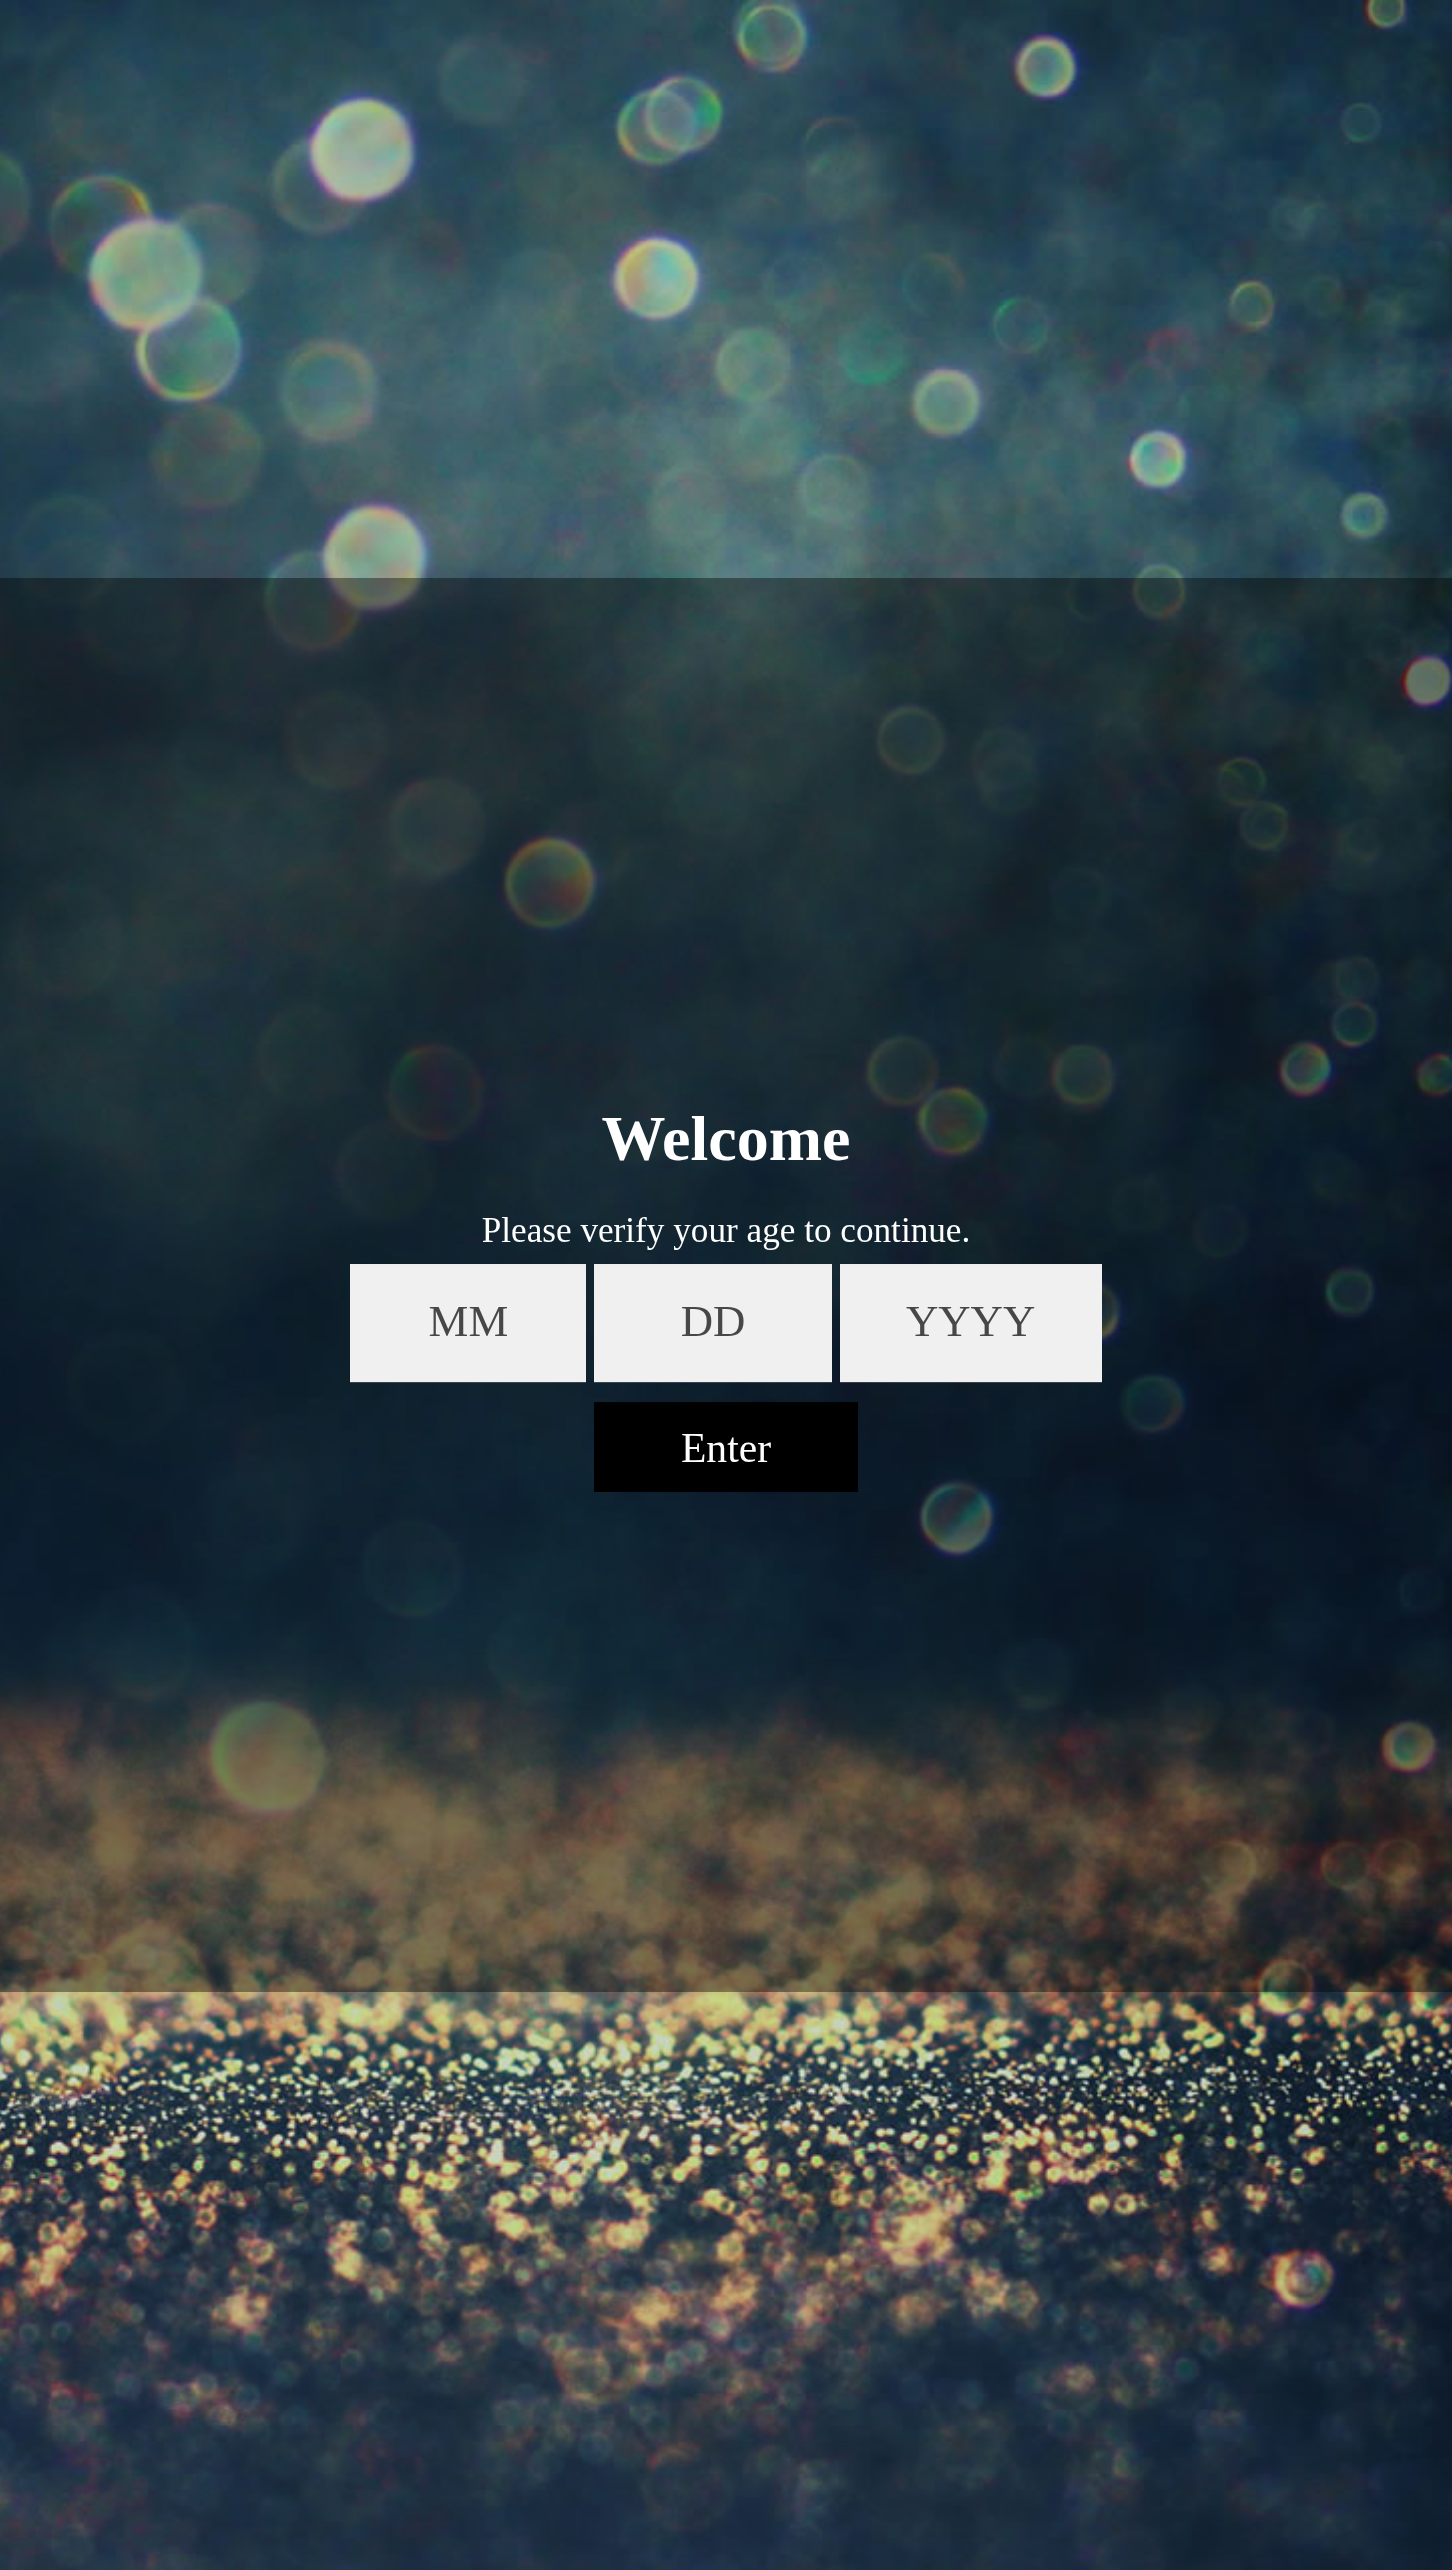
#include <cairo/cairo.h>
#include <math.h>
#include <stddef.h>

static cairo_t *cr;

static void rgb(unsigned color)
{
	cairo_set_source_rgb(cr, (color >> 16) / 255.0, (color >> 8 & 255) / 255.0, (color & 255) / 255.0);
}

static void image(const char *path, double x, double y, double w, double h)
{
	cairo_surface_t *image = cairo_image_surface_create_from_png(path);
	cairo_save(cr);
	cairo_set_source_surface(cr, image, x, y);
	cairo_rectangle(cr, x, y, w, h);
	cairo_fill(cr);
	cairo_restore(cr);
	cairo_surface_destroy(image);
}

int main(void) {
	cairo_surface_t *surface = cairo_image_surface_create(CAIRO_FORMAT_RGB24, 1452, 2570);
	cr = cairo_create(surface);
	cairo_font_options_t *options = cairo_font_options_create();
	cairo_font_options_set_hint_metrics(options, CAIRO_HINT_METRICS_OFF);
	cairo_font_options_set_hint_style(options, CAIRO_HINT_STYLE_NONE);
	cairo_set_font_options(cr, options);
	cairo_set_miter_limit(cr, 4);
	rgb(0xffffff);
	cairo_paint(cr);
	image("img/1.png", 0, 0, 1452, 2570);
	image("img/2.png", 0, 578, 1452, 1414);
	cairo_surface_write_to_png(surface, "page.png");
	cairo_font_options_destroy(options);
	cairo_destroy(cr);
	cairo_surface_destroy(surface);
	return 0;
}
